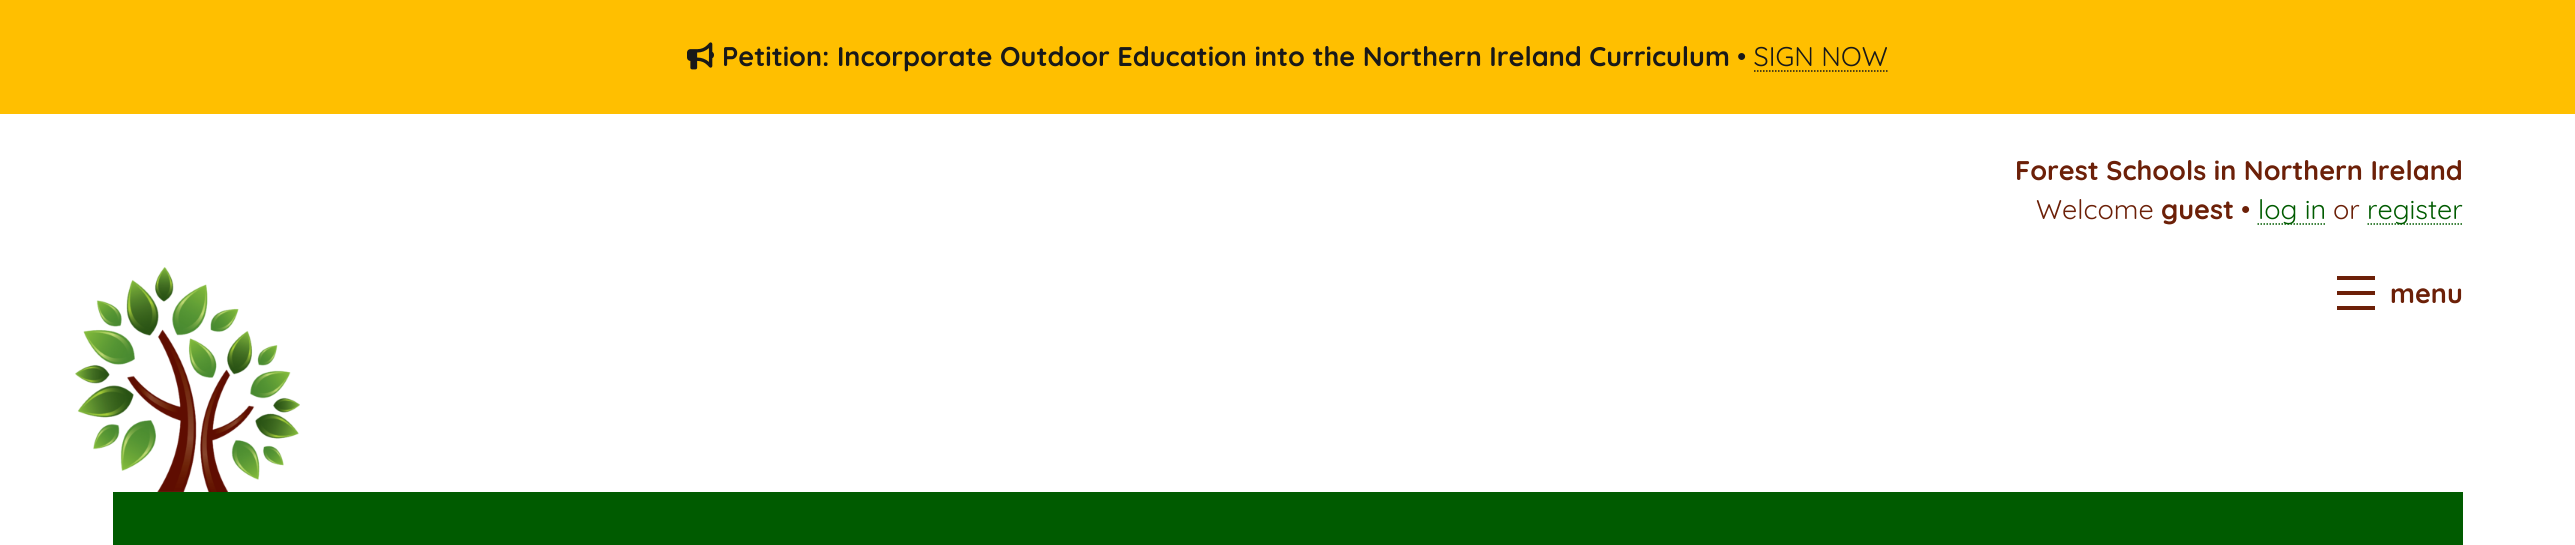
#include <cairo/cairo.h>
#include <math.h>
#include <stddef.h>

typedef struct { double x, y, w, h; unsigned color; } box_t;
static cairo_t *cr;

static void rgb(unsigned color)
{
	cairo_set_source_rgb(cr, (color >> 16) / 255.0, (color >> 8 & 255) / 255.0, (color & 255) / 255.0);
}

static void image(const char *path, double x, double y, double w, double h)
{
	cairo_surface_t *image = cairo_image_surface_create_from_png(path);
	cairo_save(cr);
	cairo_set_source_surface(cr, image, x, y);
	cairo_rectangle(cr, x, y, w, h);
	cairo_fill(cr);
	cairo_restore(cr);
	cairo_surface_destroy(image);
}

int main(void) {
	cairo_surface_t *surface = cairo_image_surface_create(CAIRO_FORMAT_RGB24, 2575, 545);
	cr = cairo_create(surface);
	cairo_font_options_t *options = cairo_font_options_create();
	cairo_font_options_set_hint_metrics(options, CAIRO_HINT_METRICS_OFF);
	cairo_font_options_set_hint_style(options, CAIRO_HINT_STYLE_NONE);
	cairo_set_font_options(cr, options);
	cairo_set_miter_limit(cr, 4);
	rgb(0xffffff);
	cairo_paint(cr);
	rgb(0xffbf00);
	cairo_rectangle(cr, 0, 0, 2575, 114);
	cairo_fill(cr);
	image("img/1.png", 687, 42, 27, 28);
	cairo_new_path(cr);
	cairo_move_to(cr, 1754, 71);
	cairo_line_to(cr, 1888, 71);
	rgb(0x191919);
	cairo_set_line_width(cr, 1.5);
	cairo_set_dash(cr, (double[]){1.5, 1.5}, 2, 0);
	cairo_stroke(cr);
	cairo_new_path(cr);
	cairo_move_to(cr, 2257.5, 224);
	cairo_line_to(cr, 2326, 224);
	rgb(0x005b00);
	cairo_stroke(cr);
	cairo_new_path(cr);
	cairo_move_to(cr, 2367.5, 224);
	cairo_line_to(cr, 2463, 224);
	cairo_stroke(cr);
	image("img/2.png", 75, 267, 225, 225);
	{
		static const box_t items[] = {
			{2337, 276, 38, 4, 0x6c2008},
			{2337, 291, 38, 4, 0x6c2008},
			{2337, 306, 38, 4, 0x6c2008},
			{113, 492, 2350, 53, 0x005b00},
		};
		for (size_t i = 0; i < sizeof items / sizeof *items; i++) {
			rgb(items[i].color);
			cairo_rectangle(cr, items[i].x, items[i].y, items[i].w, items[i].h);
			cairo_fill(cr);
		}
	}
	cairo_select_font_face(cr, "Quicksand", CAIRO_FONT_SLANT_NORMAL, CAIRO_FONT_WEIGHT_BOLD);
	cairo_set_font_size(cr, 27);
	rgb(0x191919);
	cairo_move_to(cr, 722, 66);
	cairo_show_text(cr, "Petition: Incorporate Outdoor Education into the Northern Ireland Curriculum");
	cairo_select_font_face(cr, "Quicksand", CAIRO_FONT_SLANT_NORMAL, CAIRO_FONT_WEIGHT_NORMAL);
	cairo_move_to(cr, 1737, 66);
	cairo_show_text(cr, "• SIGN NOW");
	cairo_select_font_face(cr, "Quicksand", CAIRO_FONT_SLANT_NORMAL, CAIRO_FONT_WEIGHT_BOLD);
	rgb(0x6c2008);
	cairo_move_to(cr, 2015, 180);
	cairo_show_text(cr, "Forest Schools in Northern Ireland");
	cairo_select_font_face(cr, "Quicksand", CAIRO_FONT_SLANT_NORMAL, CAIRO_FONT_WEIGHT_NORMAL);
	cairo_move_to(cr, 2036, 219);
	cairo_show_text(cr, "Welcome");
	cairo_select_font_face(cr, "Quicksand", CAIRO_FONT_SLANT_NORMAL, CAIRO_FONT_WEIGHT_BOLD);
	cairo_move_to(cr, 2161, 219);
	cairo_show_text(cr, "guest");
	cairo_select_font_face(cr, "Quicksand", CAIRO_FONT_SLANT_NORMAL, CAIRO_FONT_WEIGHT_NORMAL);
	cairo_move_to(cr, 2241, 219);
	cairo_show_text(cr, "•");
	rgb(0x005b00);
	cairo_move_to(cr, 2258, 219);
	cairo_show_text(cr, "log in");
	rgb(0x6c2008);
	cairo_move_to(cr, 2333, 219);
	cairo_show_text(cr, "or");
	rgb(0x005b00);
	cairo_move_to(cr, 2367, 219);
	cairo_show_text(cr, "register");
	cairo_select_font_face(cr, "Quicksand", CAIRO_FONT_SLANT_NORMAL, CAIRO_FONT_WEIGHT_BOLD);
	rgb(0x6c2008);
	cairo_move_to(cr, 2390, 303);
	cairo_show_text(cr, "menu");
	cairo_surface_write_to_png(surface, "page.png");
	cairo_font_options_destroy(options);
	cairo_destroy(cr);
	cairo_surface_destroy(surface);
	return 0;
}
